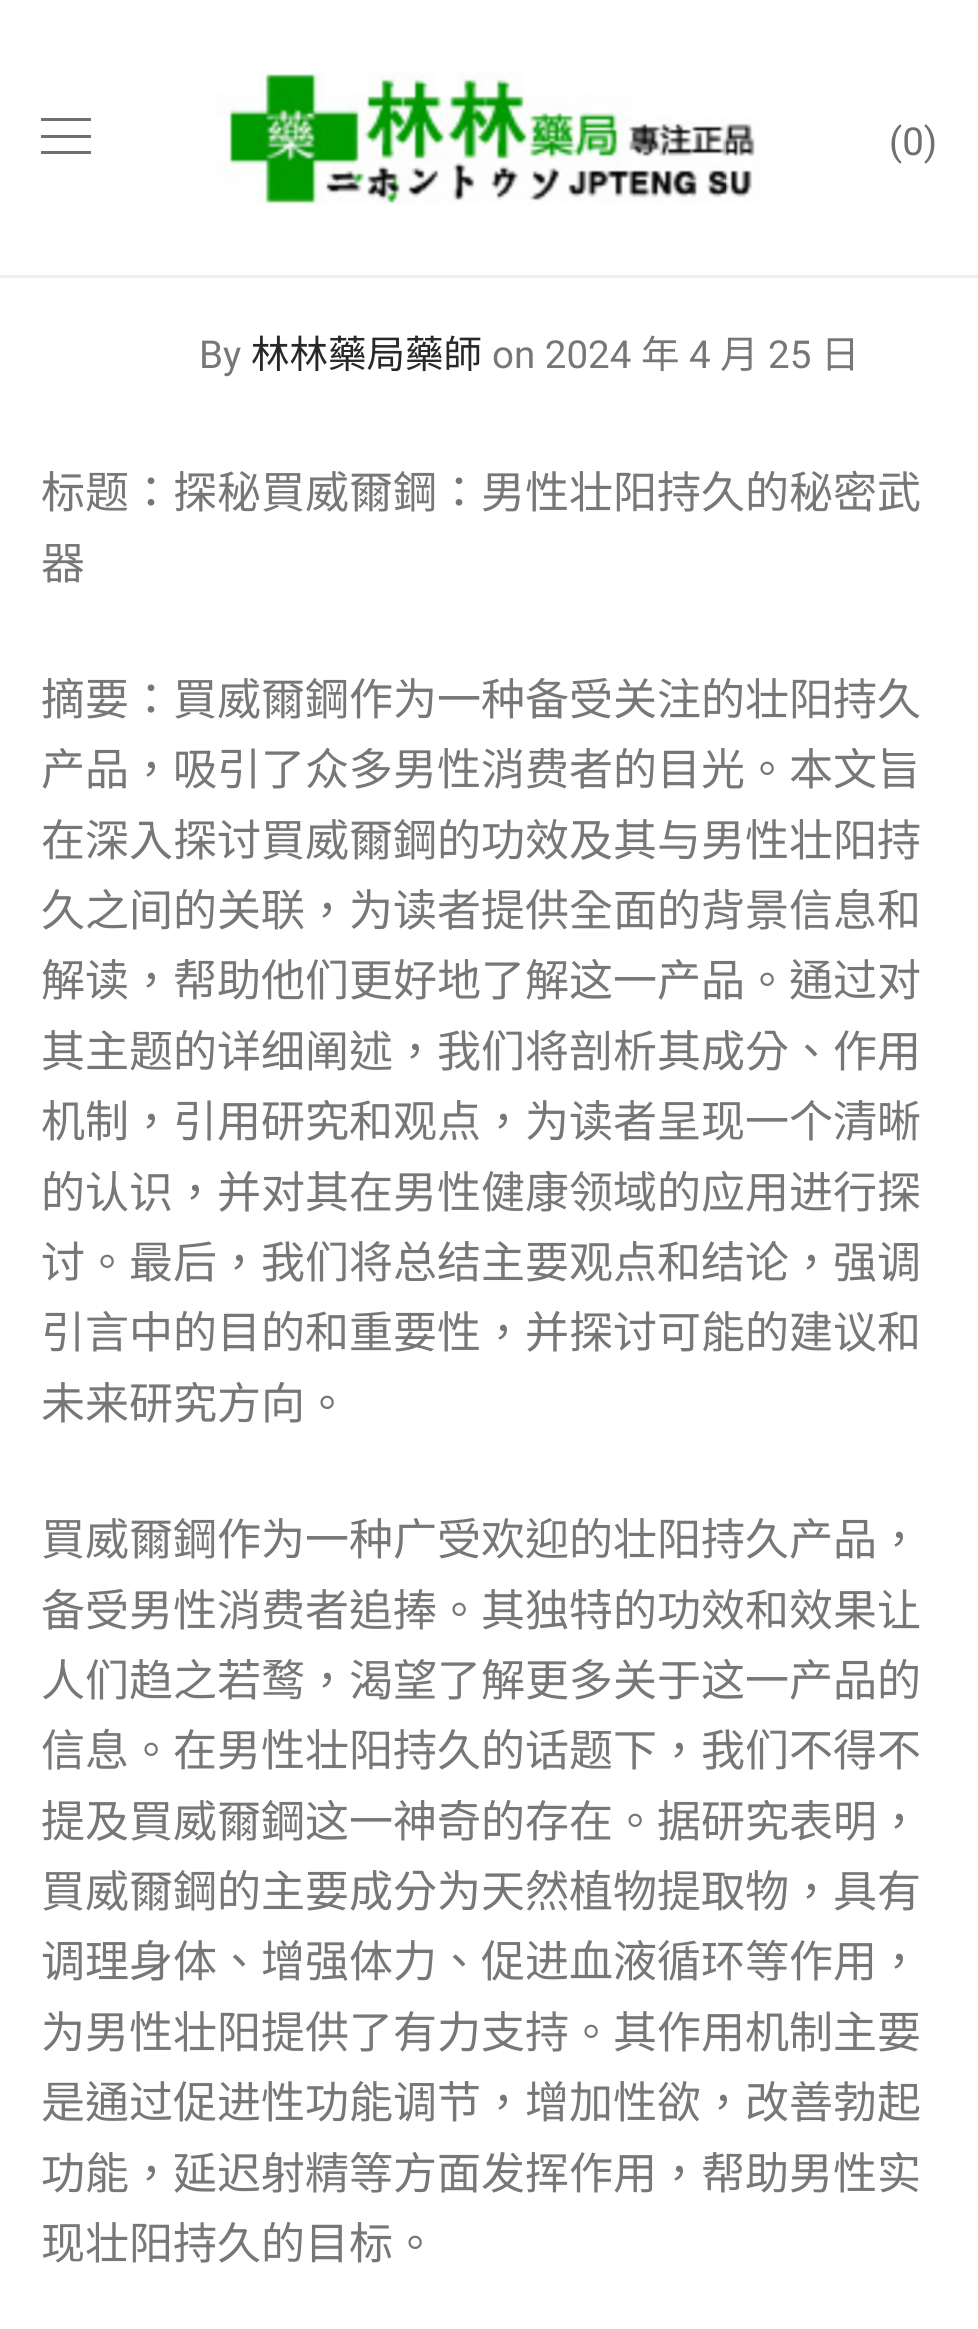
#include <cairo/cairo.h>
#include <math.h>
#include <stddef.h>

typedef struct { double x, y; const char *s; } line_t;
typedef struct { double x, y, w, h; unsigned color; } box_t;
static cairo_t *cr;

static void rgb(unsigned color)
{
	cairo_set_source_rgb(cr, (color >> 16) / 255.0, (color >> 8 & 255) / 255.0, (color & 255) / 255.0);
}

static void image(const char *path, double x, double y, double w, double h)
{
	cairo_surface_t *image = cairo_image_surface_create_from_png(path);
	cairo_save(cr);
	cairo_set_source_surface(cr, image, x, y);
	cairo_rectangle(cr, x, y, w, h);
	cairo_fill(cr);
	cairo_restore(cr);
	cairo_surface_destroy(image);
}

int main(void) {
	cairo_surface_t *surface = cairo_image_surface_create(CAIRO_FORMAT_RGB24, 978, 2329);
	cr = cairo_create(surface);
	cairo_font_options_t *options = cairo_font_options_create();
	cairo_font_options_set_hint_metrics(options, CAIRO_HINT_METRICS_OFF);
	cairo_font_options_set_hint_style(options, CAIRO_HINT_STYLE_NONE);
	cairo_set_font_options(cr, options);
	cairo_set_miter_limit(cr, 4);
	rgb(0xffffff);
	cairo_paint(cr);
	rgb(0xeeeeee);
	cairo_rectangle(cr, 0, 275, 978, 3);
	cairo_fill(cr);
	image("img/1.png", 215, 72, 546, 133);
	{
		static const box_t items[] = {
			{41, 118, 50, 3, 0x707070},
			{41, 135, 50, 3, 0x707070},
			{41, 151, 50, 3, 0x707070},
		};
		for (size_t i = 0; i < sizeof items / sizeof *items; i++) {
			rgb(items[i].color);
			cairo_rectangle(cr, items[i].x, items[i].y, items[i].w, items[i].h);
			cairo_fill(cr);
		}
	}
	cairo_select_font_face(cr, "Roboto", CAIRO_FONT_SLANT_NORMAL, CAIRO_FONT_WEIGHT_NORMAL);
	cairo_set_font_size(cr, 38.5);
	cairo_move_to(cr, 889, 155);
	cairo_show_text(cr, "(0)");
	rgb(0x777777);
	cairo_move_to(cr, 199, 368);
	cairo_show_text(cr, "By");
	cairo_select_font_face(cr, "Noto Sans CJK TC", CAIRO_FONT_SLANT_NORMAL, CAIRO_FONT_WEIGHT_NORMAL);
	rgb(0x282828);
	cairo_move_to(cr, 251, 368);
	cairo_show_text(cr, "林林藥局藥師");
	cairo_select_font_face(cr, "Roboto", CAIRO_FONT_SLANT_NORMAL, CAIRO_FONT_WEIGHT_NORMAL);
	rgb(0x777777);
	cairo_move_to(cr, 492, 368);
	cairo_show_text(cr, "on 2024");
	cairo_select_font_face(cr, "Noto Sans CJK TC", CAIRO_FONT_SLANT_NORMAL, CAIRO_FONT_WEIGHT_NORMAL);
	cairo_move_to(cr, 641, 368);
	cairo_show_text(cr, "年");
	cairo_select_font_face(cr, "Roboto", CAIRO_FONT_SLANT_NORMAL, CAIRO_FONT_WEIGHT_NORMAL);
	cairo_move_to(cr, 689, 368);
	cairo_show_text(cr, "4");
	cairo_select_font_face(cr, "Noto Sans CJK TC", CAIRO_FONT_SLANT_NORMAL, CAIRO_FONT_WEIGHT_NORMAL);
	cairo_move_to(cr, 720, 368);
	cairo_show_text(cr, "月");
	cairo_select_font_face(cr, "Roboto", CAIRO_FONT_SLANT_NORMAL, CAIRO_FONT_WEIGHT_NORMAL);
	cairo_move_to(cr, 768, 368);
	cairo_show_text(cr, "25");
	cairo_select_font_face(cr, "Noto Sans CJK TC", CAIRO_FONT_SLANT_NORMAL, CAIRO_FONT_WEIGHT_NORMAL);
	cairo_move_to(cr, 821, 368);
	cairo_show_text(cr, "日");
	cairo_set_font_size(cr, 44);
	{
		static const line_t items[] = {
			{41, 508, "标题：探秘買威爾鋼：男性壮阳持久的秘密武"},
			{41, 579, "器"},
			{41, 715, "摘要：買威爾鋼作为一种备受关注的壮阳持久"},
			{41, 785, "产品，吸引了众多男性消费者的目光。本文旨"},
			{41, 856, "在深入探讨買威爾鋼的功效及其与男性壮阳持"},
			{41, 926, "久之间的关联，为读者提供全面的背景信息和"},
			{41, 996, "解读，帮助他们更好地了解这一产品。通过对"},
			{41, 1067, "其主题的详细阐述，我们将剖析其成分、作用"},
			{41, 1137, "机制，引用研究和观点，为读者呈现一个清晰"},
			{41, 1208, "的认识，并对其在男性健康领域的应用进行探"},
			{41, 1278, "讨。最后，我们将总结主要观点和结论，强调"},
			{41, 1348, "引言中的目的和重要性，并探讨可能的建议和"},
			{41, 1419, "未来研究方向。"},
			{41, 1555, "買威爾鋼作为一种广受欢迎的壮阳持久产品，"},
			{41, 1626, "备受男性消费者追捧。其独特的功效和效果让"},
			{41, 1696, "人们趋之若鹜，渴望了解更多关于这一产品的"},
			{41, 1766, "信息。在男性壮阳持久的话题下，我们不得不"},
			{41, 1837, "提及買威爾鋼这一神奇的存在。据研究表明，"},
			{41, 1907, "買威爾鋼的主要成分为天然植物提取物，具有"},
			{41, 1977, "调理身体、增强体力、促进血液循环等作用，"},
			{41, 2048, "为男性壮阳提供了有力支持。其作用机制主要"},
			{41, 2118, "是通过促进性功能调节，增加性欲，改善勃起"},
			{41, 2189, "功能，延迟射精等方面发挥作用，帮助男性实"},
			{41, 2259, "现壮阳持久的目标。"},
		};
		for (size_t i = 0; i < sizeof items / sizeof *items; i++) {
			cairo_move_to(cr, items[i].x, items[i].y);
			cairo_show_text(cr, items[i].s);
		}
	}
	cairo_surface_write_to_png(surface, "page.png");
	cairo_font_options_destroy(options);
	cairo_destroy(cr);
	cairo_surface_destroy(surface);
	return 0;
}
